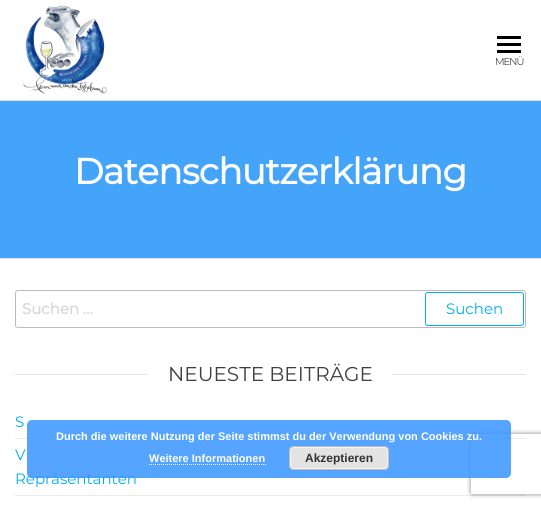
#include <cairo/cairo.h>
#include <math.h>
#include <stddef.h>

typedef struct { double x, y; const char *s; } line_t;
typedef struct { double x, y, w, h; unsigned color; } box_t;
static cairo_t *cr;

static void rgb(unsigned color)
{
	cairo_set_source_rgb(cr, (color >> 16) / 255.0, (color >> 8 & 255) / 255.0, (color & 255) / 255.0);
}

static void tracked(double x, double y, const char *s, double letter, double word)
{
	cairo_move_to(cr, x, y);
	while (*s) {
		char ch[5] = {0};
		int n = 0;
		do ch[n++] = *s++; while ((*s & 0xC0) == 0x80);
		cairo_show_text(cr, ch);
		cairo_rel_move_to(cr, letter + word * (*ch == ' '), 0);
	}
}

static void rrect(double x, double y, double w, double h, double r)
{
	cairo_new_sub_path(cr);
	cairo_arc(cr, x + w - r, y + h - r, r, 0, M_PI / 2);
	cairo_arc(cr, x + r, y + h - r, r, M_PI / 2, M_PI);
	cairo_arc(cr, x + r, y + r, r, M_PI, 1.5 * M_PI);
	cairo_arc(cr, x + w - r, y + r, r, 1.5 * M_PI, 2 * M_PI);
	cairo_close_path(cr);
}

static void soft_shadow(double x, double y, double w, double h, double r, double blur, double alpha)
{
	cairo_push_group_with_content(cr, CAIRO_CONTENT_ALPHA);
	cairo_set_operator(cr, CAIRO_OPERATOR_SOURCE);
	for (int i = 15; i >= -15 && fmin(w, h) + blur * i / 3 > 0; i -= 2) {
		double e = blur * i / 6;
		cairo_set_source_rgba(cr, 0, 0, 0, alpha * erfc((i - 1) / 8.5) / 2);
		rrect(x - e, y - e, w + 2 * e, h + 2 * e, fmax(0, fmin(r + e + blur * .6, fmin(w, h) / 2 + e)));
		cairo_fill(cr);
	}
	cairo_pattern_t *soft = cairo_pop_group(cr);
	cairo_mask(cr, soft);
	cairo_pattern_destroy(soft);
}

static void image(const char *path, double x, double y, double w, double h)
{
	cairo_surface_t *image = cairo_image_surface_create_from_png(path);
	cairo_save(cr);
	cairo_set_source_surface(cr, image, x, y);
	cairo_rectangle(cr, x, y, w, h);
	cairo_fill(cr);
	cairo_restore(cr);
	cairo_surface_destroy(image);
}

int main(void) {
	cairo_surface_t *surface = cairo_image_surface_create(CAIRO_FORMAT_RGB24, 541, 508);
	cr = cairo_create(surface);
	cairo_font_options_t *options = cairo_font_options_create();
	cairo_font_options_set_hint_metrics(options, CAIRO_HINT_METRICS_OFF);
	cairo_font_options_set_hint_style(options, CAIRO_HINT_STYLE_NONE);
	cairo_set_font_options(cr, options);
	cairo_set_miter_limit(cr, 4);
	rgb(0xffffff);
	cairo_paint(cr);
	rgb(0xe2e2e2);
	cairo_rectangle(cr, 0, 100, 541, 1);
	cairo_fill(cr);
	image("img/1.png", 23, 5, 85, 89);
	{
		static const box_t items[] = {
			{497, 36, 24, 3, 0x000000},
			{497, 43, 24, 3, 0x000000},
			{497, 50, 24, 3, 0x000000},
			{0, 258, 541, 1, 0xe2e2e2},
			{0, 101, 541, 157, 0x43a4fa},
		};
		for (size_t i = 0; i < sizeof items / sizeof *items; i++) {
			rgb(items[i].color);
			cairo_rectangle(cr, items[i].x, items[i].y, items[i].w, items[i].h);
			cairo_fill(cr);
		}
	}
	rrect(15.5, 290.5, 510, 37, 2.5);
	rgb(0xbbbbbb);
	cairo_set_line_width(cr, 1);
	cairo_stroke(cr);
	rrect(425.5, 292.5, 98, 33, 2.5);
	rgb(0x00aff2);
	cairo_stroke(cr);
	{
		static const box_t items[] = {
			{15, 374, 511, 1, 0xe2e2e2},
			{148, 374, 245, 1, 0xffffff},
			{15, 438, 511, 1, 0xebebeb},
			{15, 495, 511, 1, 0xebebeb},
		};
		for (size_t i = 0; i < sizeof items / sizeof *items; i++) {
			rgb(items[i].color);
			cairo_rectangle(cr, items[i].x, items[i].y, items[i].w, items[i].h);
			cairo_fill(cr);
		}
	}
	cairo_save(cr);
	cairo_set_fill_rule(cr, CAIRO_FILL_RULE_EVEN_ODD);
	cairo_new_path(cr);
	cairo_move_to(cr, 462, 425);
	cairo_line_to(cr, 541, 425);
	cairo_line_to(cr, 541, 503);
	cairo_line_to(cr, 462, 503);
	cairo_close_path(cr);
	cairo_move_to(cr, 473, 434);
	cairo_line_to(cr, 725, 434);
	cairo_curve_to(cr, 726, 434, 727, 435, 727, 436);
	cairo_line_to(cr, 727, 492);
	cairo_curve_to(cr, 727, 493, 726, 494, 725, 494);
	cairo_line_to(cr, 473, 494);
	cairo_curve_to(cr, 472, 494, 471, 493, 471, 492);
	cairo_line_to(cr, 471, 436);
	cairo_curve_to(cr, 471, 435, 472, 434, 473, 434);
	cairo_close_path(cr);
	cairo_clip(cr);
	rgb(0x808080);
	soft_shadow(471, 434, 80, 60, 2, 2.5, 1);
	cairo_restore(cr);
	cairo_select_font_face(cr, "Montserrat Light", CAIRO_FONT_SLANT_NORMAL, CAIRO_FONT_WEIGHT_NORMAL);
	cairo_set_font_size(cr, 10);
	rgb(0x000000);
	tracked(495, 65, "MENÜ", -1, 0);
	cairo_select_font_face(cr, "Montserrat", CAIRO_FONT_SLANT_NORMAL, CAIRO_FONT_WEIGHT_BOLD);
	cairo_set_font_size(cr, 36);
	rgb(0xffffff);
	tracked(74, 184, "Datenschutzerklärung", -0.75, 0);
	cairo_set_font_size(cr, 15);
	rgb(0xd7d7d7);
	cairo_move_to(cr, 22, 314);
	cairo_show_text(cr, "Suchen …");
	cairo_select_font_face(cr, "Montserrat", CAIRO_FONT_SLANT_NORMAL, CAIRO_FONT_WEIGHT_NORMAL);
	rgb(0x00aff2);
	cairo_move_to(cr, 446, 314);
	cairo_show_text(cr, "Suchen");
	cairo_set_font_size(cr, 20);
	rgb(0x404040);
	cairo_move_to(cr, 168, 381);
	cairo_show_text(cr, "NEUESTE BEITRÄGE");
	cairo_set_font_size(cr, 15);
	rgb(0x00aff2);
	{
		static const line_t items[] = {
			{15, 427, "S"},
			{15, 460, "V"},
			{15, 484, "Repräsentanten"},
		};
		for (size_t i = 0; i < sizeof items / sizeof *items; i++) {
			cairo_move_to(cr, items[i].x, items[i].y);
			cairo_show_text(cr, items[i].s);
		}
	}
	cairo_set_source_rgba(cr, 0.22, 0.58, 1, 0.85);
	rrect(27, 420, 484, 58, 5);
	cairo_fill(cr);
	cairo_select_font_face(cr, "Liberation Sans", CAIRO_FONT_SLANT_NORMAL, CAIRO_FONT_WEIGHT_BOLD);
	cairo_set_font_size(cr, 11);
	rgb(0xffffff);
	cairo_move_to(cr, 56, 440);
	cairo_show_text(cr, "Durch die weitere Nutzung der Seite stimmst du der Verwendung von Cookies zu.");
	cairo_move_to(cr, 149, 462);
	cairo_show_text(cr, "Weitere Informationen");
	cairo_new_path(cr);
	cairo_move_to(cr, 149, 464.5);
	cairo_line_to(cr, 266, 464.5);
	cairo_set_dash(cr, (double[]){1, 1}, 2, 0);
	cairo_stroke(cr);
	rgb(0xe3e3e3);
	rrect(289, 446, 100, 24, 5);
	cairo_fill(cr);
	rrect(290.5, 447.5, 97, 21, 3.5);
	rgb(0xf6f6f6);
	cairo_set_dash(cr, NULL, 0, 0);
	cairo_stroke(cr);
	rrect(289.5, 446.5, 99, 23, 4.5);
	rgb(0xbbbbbb);
	cairo_stroke(cr);
	cairo_set_font_size(cr, 12);
	rgb(0x333333);
	cairo_move_to(cr, 305, 462);
	cairo_show_text(cr, "Akzeptieren");
	cairo_surface_write_to_png(surface, "page.png");
	cairo_font_options_destroy(options);
	cairo_destroy(cr);
	cairo_surface_destroy(surface);
	return 0;
}
